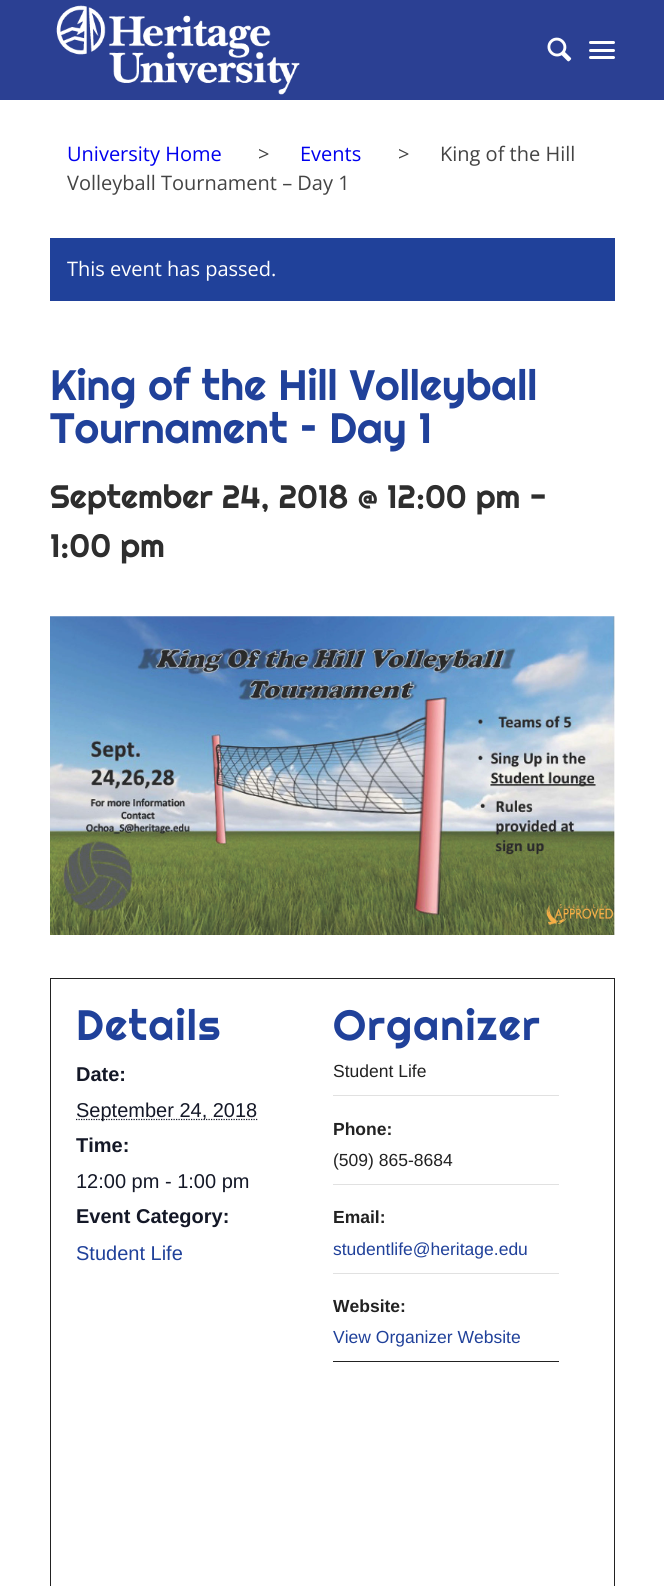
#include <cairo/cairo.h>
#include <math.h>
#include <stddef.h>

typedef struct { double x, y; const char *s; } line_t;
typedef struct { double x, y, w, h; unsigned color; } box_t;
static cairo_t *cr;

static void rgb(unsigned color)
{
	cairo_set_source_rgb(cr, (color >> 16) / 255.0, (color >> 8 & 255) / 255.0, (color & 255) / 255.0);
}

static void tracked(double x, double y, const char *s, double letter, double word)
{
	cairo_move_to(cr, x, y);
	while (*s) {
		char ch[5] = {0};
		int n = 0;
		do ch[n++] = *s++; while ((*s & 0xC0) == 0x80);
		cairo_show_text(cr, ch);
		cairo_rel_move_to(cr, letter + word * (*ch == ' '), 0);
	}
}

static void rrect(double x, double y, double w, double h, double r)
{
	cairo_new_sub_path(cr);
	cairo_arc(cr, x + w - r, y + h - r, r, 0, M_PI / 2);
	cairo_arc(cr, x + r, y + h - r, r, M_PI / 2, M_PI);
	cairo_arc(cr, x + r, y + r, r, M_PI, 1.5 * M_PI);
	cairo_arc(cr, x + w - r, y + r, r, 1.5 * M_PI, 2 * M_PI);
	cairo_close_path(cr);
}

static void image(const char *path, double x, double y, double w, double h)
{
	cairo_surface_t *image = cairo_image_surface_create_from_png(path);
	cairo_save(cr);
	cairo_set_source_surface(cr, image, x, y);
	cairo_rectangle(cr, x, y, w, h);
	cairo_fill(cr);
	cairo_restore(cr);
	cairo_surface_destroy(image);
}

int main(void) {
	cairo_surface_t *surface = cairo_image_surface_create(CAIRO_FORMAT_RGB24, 664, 1586);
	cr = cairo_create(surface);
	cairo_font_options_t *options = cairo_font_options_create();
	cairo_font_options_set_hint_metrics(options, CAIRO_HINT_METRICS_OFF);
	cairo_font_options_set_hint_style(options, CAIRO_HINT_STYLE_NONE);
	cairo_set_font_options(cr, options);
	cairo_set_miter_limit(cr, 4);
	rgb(0xffffff);
	cairo_paint(cr);
	rgb(0x2b4093);
	cairo_rectangle(cr, 0, 0, 664, 100);
	cairo_fill(cr);
	image("img/1.png", 56, 5, 244, 90);
	image("img/2.png", 547, 37, 25, 25);
	rgb(0xffffff);
	rrect(589, 49, 26, 3, 1.5);
	cairo_fill(cr);
	rrect(589, 41, 26, 3, 1.5);
	cairo_fill(cr);
	rrect(589, 56, 26, 3, 1.5);
	cairo_fill(cr);
	rgb(0x20419a);
	cairo_rectangle(cr, 50, 238, 565, 63);
	cairo_fill(cr);
	image("img/3.png", 50, 616, 565, 319);
	cairo_rectangle(cr, 50.5, 978.5, 564, 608);
	rgb(0x222222);
	cairo_set_line_width(cr, 1);
	cairo_stroke(cr);
	cairo_new_path(cr);
	cairo_move_to(cr, 76, 1119.5);
	cairo_line_to(cr, 257.5, 1119.5);
	rgb(0x141827);
	cairo_set_line_width(cr, 1.2);
	cairo_set_dash(cr, (double[]){1.25, 1.25}, 2, 0);
	cairo_stroke(cr);
	{
		static const box_t items[] = {
			{333, 1095, 226, 1, 0xe1e1e1},
			{333, 1184, 226, 1, 0xe1e1e1},
			{333, 1273, 226, 1, 0xe1e1e1},
			{333, 1361, 226, 1, 0x222222},
		};
		for (size_t i = 0; i < sizeof items / sizeof *items; i++) {
			rgb(items[i].color);
			cairo_rectangle(cr, items[i].x, items[i].y, items[i].w, items[i].h);
			cairo_fill(cr);
		}
	}
	cairo_select_font_face(cr, "Open Sans", CAIRO_FONT_SLANT_NORMAL, CAIRO_FONT_WEIGHT_NORMAL);
	cairo_set_font_size(cr, 20);
	rgb(0x0000ee);
	cairo_move_to(cr, 67, 161);
	cairo_show_text(cr, "University Home");
	rgb(0x444444);
	cairo_move_to(cr, 258, 161);
	cairo_show_text(cr, ">");
	rgb(0x0000ee);
	cairo_move_to(cr, 300, 161);
	cairo_show_text(cr, "Events");
	rgb(0x444444);
	{
		static const line_t items[] = {
			{398, 161, ">"},
			{440, 161, "King of the Hill"},
			{67, 190, "Volleyball Tournament – Day 1"},
		};
		for (size_t i = 0; i < sizeof items / sizeof *items; i++) {
			cairo_move_to(cr, items[i].x, items[i].y);
			cairo_show_text(cr, items[i].s);
		}
	}
	rgb(0xffffff);
	cairo_move_to(cr, 67, 276);
	cairo_show_text(cr, "This event has passed.");
	cairo_select_font_face(cr, "Righteous", CAIRO_FONT_SLANT_NORMAL, CAIRO_FONT_WEIGHT_NORMAL);
	cairo_set_font_size(cr, 42.5);
	rgb(0x20419a);
	cairo_move_to(cr, 50, 400);
	cairo_show_text(cr, "King of the Hill Volleyball");
	cairo_move_to(cr, 50, 443);
	cairo_show_text(cr, "Tournament – Day 1");
	cairo_set_font_size(cr, 32.5);
	rgb(0x2e2e2e);
	cairo_move_to(cr, 50, 508);
	cairo_show_text(cr, "September 24, 2018 @ 12:00 pm -");
	cairo_move_to(cr, 50, 557);
	cairo_show_text(cr, "1:00 pm");
	cairo_set_font_size(cr, 42.5);
	rgb(0x20419a);
	tracked(76, 1040, "Details", 1.25, 0);
	cairo_select_font_face(cr, "Liberation Sans", CAIRO_FONT_SLANT_NORMAL, CAIRO_FONT_WEIGHT_BOLD);
	cairo_set_font_size(cr, 20);
	rgb(0x141827);
	cairo_move_to(cr, 76, 1081);
	cairo_show_text(cr, "Date:");
	cairo_select_font_face(cr, "Liberation Sans", CAIRO_FONT_SLANT_NORMAL, CAIRO_FONT_WEIGHT_NORMAL);
	cairo_move_to(cr, 76, 1117);
	cairo_show_text(cr, "September 24, 2018");
	cairo_select_font_face(cr, "Liberation Sans", CAIRO_FONT_SLANT_NORMAL, CAIRO_FONT_WEIGHT_BOLD);
	cairo_move_to(cr, 76, 1152);
	cairo_show_text(cr, "Time:");
	cairo_select_font_face(cr, "Liberation Sans", CAIRO_FONT_SLANT_NORMAL, CAIRO_FONT_WEIGHT_NORMAL);
	cairo_move_to(cr, 76, 1188);
	cairo_show_text(cr, "12:00 pm - 1:00 pm");
	cairo_select_font_face(cr, "Liberation Sans", CAIRO_FONT_SLANT_NORMAL, CAIRO_FONT_WEIGHT_BOLD);
	cairo_move_to(cr, 76, 1223);
	cairo_show_text(cr, "Event Category:");
	cairo_select_font_face(cr, "Liberation Sans", CAIRO_FONT_SLANT_NORMAL, CAIRO_FONT_WEIGHT_NORMAL);
	rgb(0x20419a);
	cairo_move_to(cr, 76, 1260);
	cairo_show_text(cr, "Student Life");
	cairo_select_font_face(cr, "Righteous", CAIRO_FONT_SLANT_NORMAL, CAIRO_FONT_WEIGHT_NORMAL);
	cairo_set_font_size(cr, 42.5);
	tracked(333, 1040, "Organizer", 1.25, 0);
	cairo_select_font_face(cr, "Liberation Sans", CAIRO_FONT_SLANT_NORMAL, CAIRO_FONT_WEIGHT_NORMAL);
	cairo_set_font_size(cr, 17.5);
	rgb(0x222222);
	cairo_move_to(cr, 333, 1077);
	cairo_show_text(cr, "Student Life");
	cairo_select_font_face(cr, "Liberation Sans", CAIRO_FONT_SLANT_NORMAL, CAIRO_FONT_WEIGHT_BOLD);
	cairo_move_to(cr, 333, 1135);
	cairo_show_text(cr, "Phone:");
	cairo_select_font_face(cr, "Liberation Sans", CAIRO_FONT_SLANT_NORMAL, CAIRO_FONT_WEIGHT_NORMAL);
	cairo_move_to(cr, 333, 1166);
	cairo_show_text(cr, "(509) 865-8684");
	cairo_select_font_face(cr, "Liberation Sans", CAIRO_FONT_SLANT_NORMAL, CAIRO_FONT_WEIGHT_BOLD);
	cairo_move_to(cr, 333, 1223);
	cairo_show_text(cr, "Email:");
	cairo_select_font_face(cr, "Liberation Sans", CAIRO_FONT_SLANT_NORMAL, CAIRO_FONT_WEIGHT_NORMAL);
	rgb(0x20419a);
	cairo_move_to(cr, 333, 1255);
	cairo_show_text(cr, "studentlife@heritage.edu");
	cairo_select_font_face(cr, "Liberation Sans", CAIRO_FONT_SLANT_NORMAL, CAIRO_FONT_WEIGHT_BOLD);
	rgb(0x222222);
	cairo_move_to(cr, 333, 1312);
	cairo_show_text(cr, "Website:");
	cairo_select_font_face(cr, "Liberation Sans", CAIRO_FONT_SLANT_NORMAL, CAIRO_FONT_WEIGHT_NORMAL);
	rgb(0x20419a);
	cairo_move_to(cr, 333, 1343);
	cairo_show_text(cr, "View Organizer Website");
	cairo_surface_write_to_png(surface, "page.png");
	cairo_font_options_destroy(options);
	cairo_destroy(cr);
	cairo_surface_destroy(surface);
	return 0;
}
